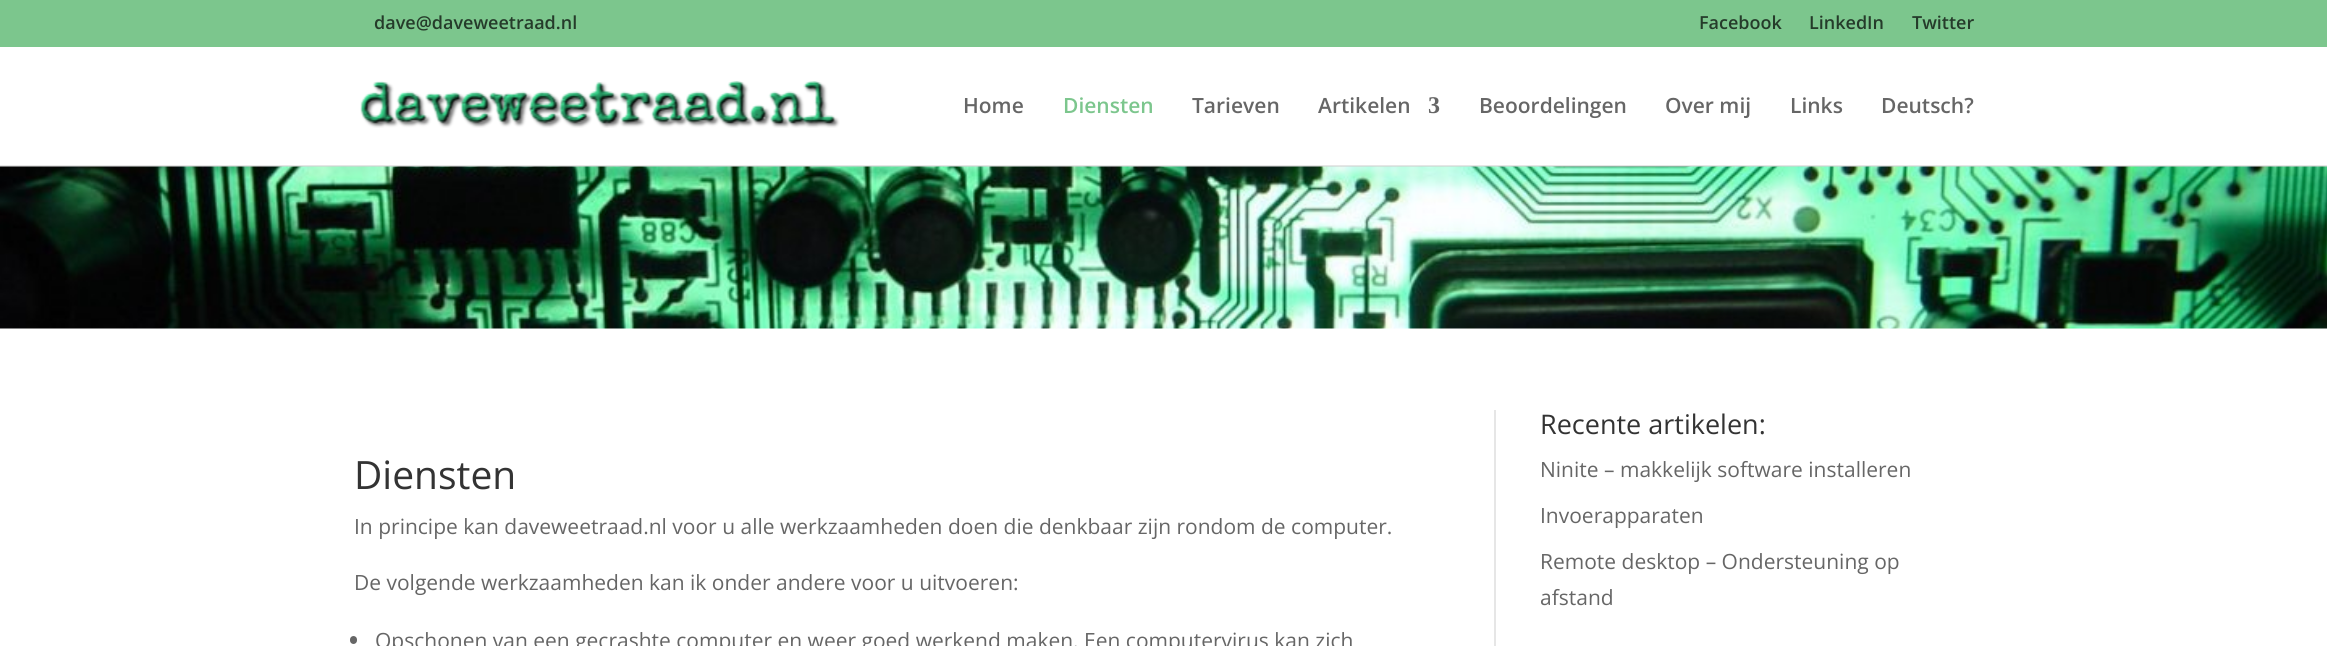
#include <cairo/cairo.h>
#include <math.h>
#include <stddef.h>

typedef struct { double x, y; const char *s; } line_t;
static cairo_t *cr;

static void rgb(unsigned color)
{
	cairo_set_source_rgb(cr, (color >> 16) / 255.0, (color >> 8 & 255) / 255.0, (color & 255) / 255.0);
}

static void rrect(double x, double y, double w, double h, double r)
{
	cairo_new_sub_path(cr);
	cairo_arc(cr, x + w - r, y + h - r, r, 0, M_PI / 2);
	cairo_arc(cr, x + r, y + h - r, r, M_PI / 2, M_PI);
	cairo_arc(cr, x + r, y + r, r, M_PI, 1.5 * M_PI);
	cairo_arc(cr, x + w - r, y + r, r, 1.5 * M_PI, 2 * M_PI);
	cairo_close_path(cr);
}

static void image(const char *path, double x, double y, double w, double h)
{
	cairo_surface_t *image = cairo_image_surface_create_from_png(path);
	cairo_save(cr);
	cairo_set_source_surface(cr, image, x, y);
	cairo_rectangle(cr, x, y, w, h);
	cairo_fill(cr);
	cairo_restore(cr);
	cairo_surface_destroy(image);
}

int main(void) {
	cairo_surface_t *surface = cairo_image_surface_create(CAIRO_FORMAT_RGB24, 2327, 646);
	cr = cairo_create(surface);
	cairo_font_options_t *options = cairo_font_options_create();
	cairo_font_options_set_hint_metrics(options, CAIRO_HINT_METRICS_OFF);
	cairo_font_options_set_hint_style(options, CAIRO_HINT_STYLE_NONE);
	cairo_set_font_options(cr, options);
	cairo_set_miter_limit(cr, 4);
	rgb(0xffffff);
	cairo_paint(cr);
	rgb(0x7cc68d);
	cairo_rectangle(cr, 0, 0, 2327, 47);
	cairo_fill(cr);
	image("img/2.png", 0, 166, 2327, 163);
	cairo_set_source_rgba(cr, 0, 0, 0, 0.1);
	cairo_rectangle(cr, 0, 165, 2327, 2);
	cairo_fill(cr);
	image("img/1.png", 360, 81, 480, 47);
	rgb(0x666666);
	rrect(350, 636, 7, 8, 3.5);
	cairo_fill(cr);
	rgb(0xe6e6e6);
	cairo_rectangle(cr, 1494, 410, 2, 236);
	cairo_fill(cr);
	cairo_select_font_face(cr, "Open Sans SemiBold", CAIRO_FONT_SLANT_NORMAL, CAIRO_FONT_WEIGHT_NORMAL);
	cairo_set_font_size(cr, 18);
	rgb(0x253b2a);
	{
		static const line_t items[] = {
			{374, 29, "dave@daveweetraad.nl"},
			{1699, 29, "Facebook"},
			{1809, 29, "LinkedIn"},
			{1912, 29, "Twitter"},
		};
		for (size_t i = 0; i < sizeof items / sizeof *items; i++) {
			cairo_move_to(cr, items[i].x, items[i].y);
			cairo_show_text(cr, items[i].s);
		}
	}
	cairo_set_font_size(cr, 21);
	rgb(0x666666);
	cairo_move_to(cr, 963, 113);
	cairo_show_text(cr, "Home");
	rgb(0x7cc68d);
	cairo_move_to(cr, 1063, 113);
	cairo_show_text(cr, "Diensten");
	rgb(0x666666);
	cairo_move_to(cr, 1192, 113);
	cairo_show_text(cr, "Tarieven");
	cairo_move_to(cr, 1318, 113);
	cairo_show_text(cr, "Artikelen");
	cairo_select_font_face(cr, "Liberation Serif", CAIRO_FONT_SLANT_NORMAL, CAIRO_FONT_WEIGHT_BOLD);
	cairo_set_font_size(cr, 24);
	cairo_move_to(cr, 1428, 113);
	cairo_show_text(cr, "3");
	cairo_select_font_face(cr, "Open Sans SemiBold", CAIRO_FONT_SLANT_NORMAL, CAIRO_FONT_WEIGHT_NORMAL);
	cairo_set_font_size(cr, 21);
	{
		static const line_t items[] = {
			{1479, 113, "Beoordelingen"},
			{1665, 113, "Over mij"},
			{1790, 113, "Links"},
			{1881, 113, "Deutsch?"},
		};
		for (size_t i = 0; i < sizeof items / sizeof *items; i++) {
			cairo_move_to(cr, items[i].x, items[i].y);
			cairo_show_text(cr, items[i].s);
		}
	}
	cairo_select_font_face(cr, "Open Sans", CAIRO_FONT_SLANT_NORMAL, CAIRO_FONT_WEIGHT_NORMAL);
	cairo_set_font_size(cr, 39);
	rgb(0x333333);
	cairo_move_to(cr, 354, 489);
	cairo_show_text(cr, "Diensten");
	cairo_set_font_size(cr, 21);
	rgb(0x666666);
	{
		static const line_t items[] = {
			{354, 534, "In principe kan daveweetraad.nl voor u alle werkzaamheden doen die denkbaar zijn rondom de computer."},
			{354, 590, "De volgende werkzaamheden kan ik onder andere voor u uitvoeren:"},
			{375, 648, "Opschonen van een gecrashte computer en weer goed werkend maken. Een computervirus kan zich"},
		};
		for (size_t i = 0; i < sizeof items / sizeof *items; i++) {
			cairo_move_to(cr, items[i].x, items[i].y);
			cairo_show_text(cr, items[i].s);
		}
	}
	cairo_set_font_size(cr, 27);
	rgb(0x333333);
	cairo_move_to(cr, 1540, 434);
	cairo_show_text(cr, "Recente artikelen:");
	cairo_set_font_size(cr, 21);
	rgb(0x666666);
	{
		static const line_t items[] = {
			{1540, 477, "Ninite – makkelijk software installeren"},
			{1540, 523, "Invoerapparaten"},
			{1540, 569, "Remote desktop – Ondersteuning op"},
			{1540, 605, "afstand"},
		};
		for (size_t i = 0; i < sizeof items / sizeof *items; i++) {
			cairo_move_to(cr, items[i].x, items[i].y);
			cairo_show_text(cr, items[i].s);
		}
	}
	cairo_surface_write_to_png(surface, "page.png");
	cairo_font_options_destroy(options);
	cairo_destroy(cr);
	cairo_surface_destroy(surface);
	return 0;
}
